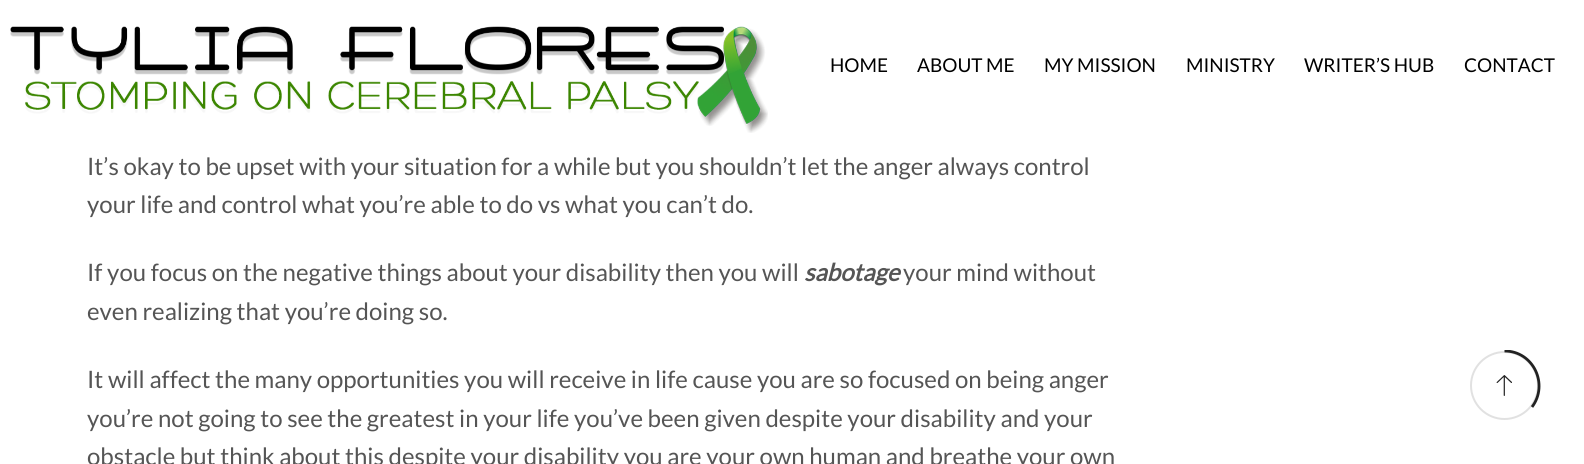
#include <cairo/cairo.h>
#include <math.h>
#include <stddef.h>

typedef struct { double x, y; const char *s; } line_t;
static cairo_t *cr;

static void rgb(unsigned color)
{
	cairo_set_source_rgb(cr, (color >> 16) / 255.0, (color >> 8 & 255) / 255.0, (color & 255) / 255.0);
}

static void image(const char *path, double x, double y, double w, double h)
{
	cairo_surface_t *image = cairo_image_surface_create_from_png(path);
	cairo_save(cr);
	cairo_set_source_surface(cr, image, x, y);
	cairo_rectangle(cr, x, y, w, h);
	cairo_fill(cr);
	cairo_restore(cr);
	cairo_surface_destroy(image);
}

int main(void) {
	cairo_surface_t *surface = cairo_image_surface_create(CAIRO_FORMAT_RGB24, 1584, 464);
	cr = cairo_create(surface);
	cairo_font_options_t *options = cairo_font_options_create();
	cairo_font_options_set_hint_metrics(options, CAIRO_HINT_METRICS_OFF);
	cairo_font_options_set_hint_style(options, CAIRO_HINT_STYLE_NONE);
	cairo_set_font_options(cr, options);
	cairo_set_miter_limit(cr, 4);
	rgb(0xffffff);
	cairo_paint(cr);
	image("img/1.png", 10, 26, 758, 107);
	cairo_arc(cr, 1504.5, 385.5, 33.5, 0, 2 * M_PI);
	rgb(0xe1e1e1);
	cairo_stroke(cr);
	cairo_save(cr);
	cairo_rectangle(cr, 1469, 350, 72, 72);
	cairo_clip(cr);
	cairo_new_path(cr);
	cairo_move_to(cr, 1504.5, 351);
	cairo_curve_to(cr, 1533.5, 351, 1549, 384.5, 1532, 407);
	rgb(0x222222);
	cairo_set_line_width(cr, 2.8);
	cairo_stroke(cr);
	cairo_restore(cr);
	image("img/2.png", 1496, 375, 16, 21);
	cairo_select_font_face(cr, "Lato", CAIRO_FONT_SLANT_NORMAL, CAIRO_FONT_WEIGHT_NORMAL);
	cairo_set_font_size(cr, 19);
	rgb(0x000000);
	{
		static const line_t items[] = {
			{830, 72, "HOME"},
			{917, 72, "ABOUT ME"},
			{1044, 72, "MY MISSION"},
			{1186, 72, "MINISTRY"},
			{1304, 72, "WRITER’S HUB"},
			{1464, 72, "CONTACT"},
		};
		for (size_t i = 0; i < sizeof items / sizeof *items; i++) {
			cairo_move_to(cr, items[i].x, items[i].y);
			cairo_show_text(cr, items[i].s);
		}
	}
	cairo_set_font_size(cr, 24);
	rgb(0x555555);
	{
		static const line_t items[] = {
			{87, 175, "It’s okay to be upset with your situation for a while but you shouldn’t let the anger always control"},
			{87, 213, "your life and control what you’re able to do vs what you can’t do."},
			{87, 281, "If you focus on the negative things about your disability then you will"},
		};
		for (size_t i = 0; i < sizeof items / sizeof *items; i++) {
			cairo_move_to(cr, items[i].x, items[i].y);
			cairo_show_text(cr, items[i].s);
		}
	}
	cairo_select_font_face(cr, "Lato", CAIRO_FONT_SLANT_ITALIC, CAIRO_FONT_WEIGHT_BOLD);
	cairo_move_to(cr, 804, 281);
	cairo_show_text(cr, "sabotage");
	cairo_select_font_face(cr, "Lato", CAIRO_FONT_SLANT_NORMAL, CAIRO_FONT_WEIGHT_NORMAL);
	{
		static const line_t items[] = {
			{903, 281, "your mind without"},
			{87, 320, "even realizing that you’re doing so."},
			{87, 388, "It will affect the many opportunities you will receive in life cause you are so focused on being anger"},
			{87, 427, "you’re not going to see the greatest in your life you’ve been given despite your disability and your"},
			{87, 465, "obstacle but think about this despite your disability you are your own human and breathe your own"},
		};
		for (size_t i = 0; i < sizeof items / sizeof *items; i++) {
			cairo_move_to(cr, items[i].x, items[i].y);
			cairo_show_text(cr, items[i].s);
		}
	}
	cairo_surface_write_to_png(surface, "page.png");
	cairo_font_options_destroy(options);
	cairo_destroy(cr);
	cairo_surface_destroy(surface);
	return 0;
}
